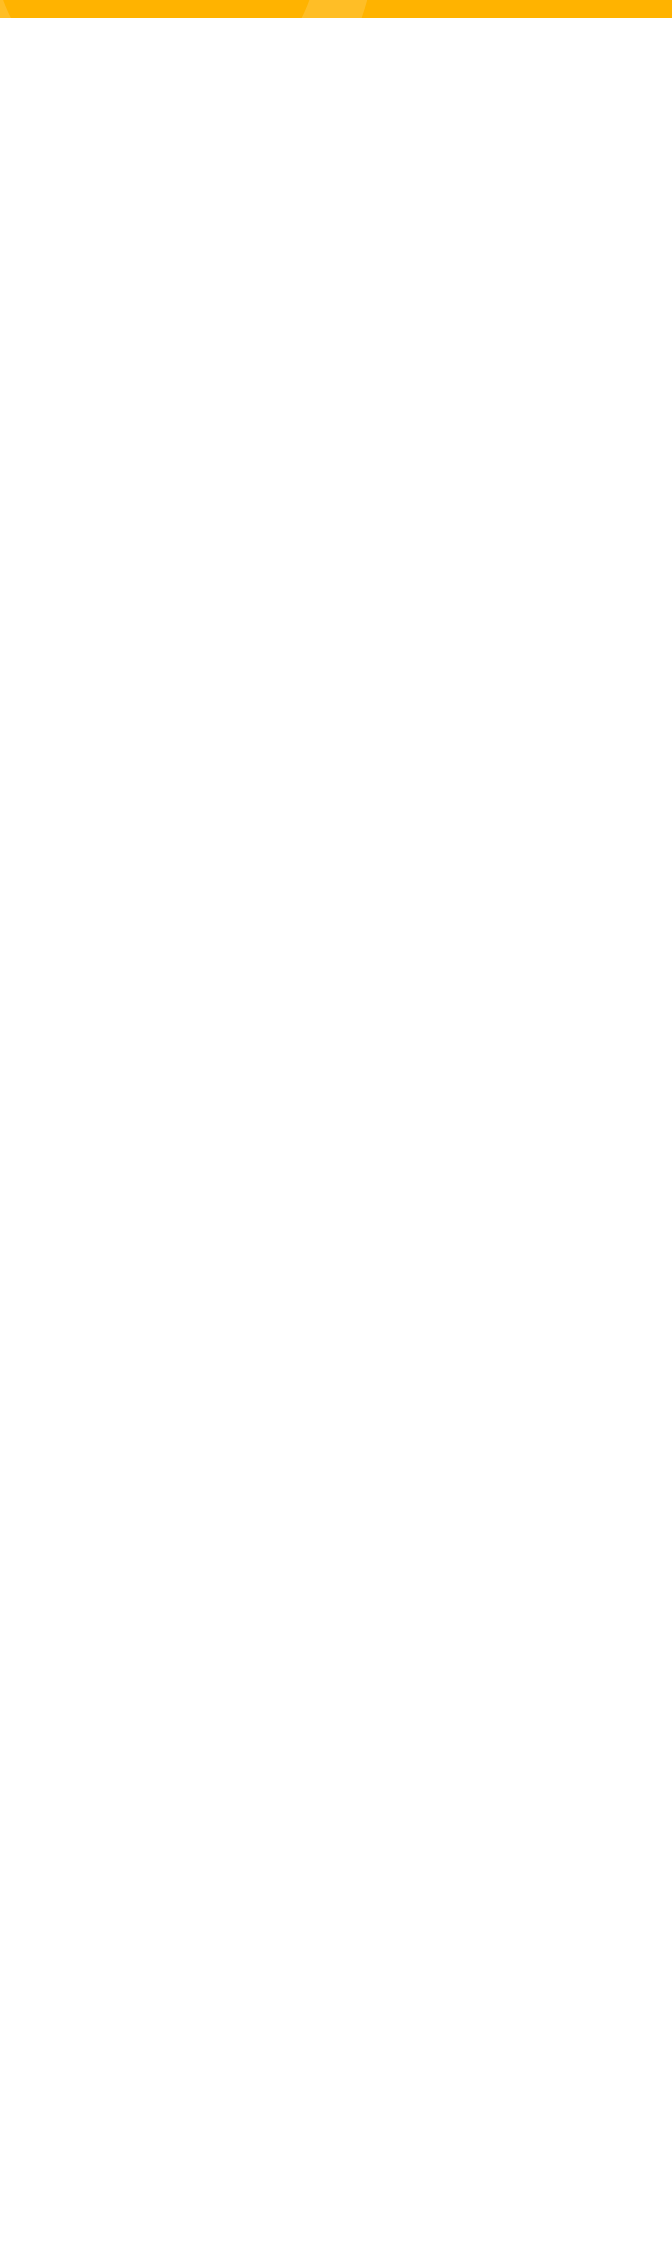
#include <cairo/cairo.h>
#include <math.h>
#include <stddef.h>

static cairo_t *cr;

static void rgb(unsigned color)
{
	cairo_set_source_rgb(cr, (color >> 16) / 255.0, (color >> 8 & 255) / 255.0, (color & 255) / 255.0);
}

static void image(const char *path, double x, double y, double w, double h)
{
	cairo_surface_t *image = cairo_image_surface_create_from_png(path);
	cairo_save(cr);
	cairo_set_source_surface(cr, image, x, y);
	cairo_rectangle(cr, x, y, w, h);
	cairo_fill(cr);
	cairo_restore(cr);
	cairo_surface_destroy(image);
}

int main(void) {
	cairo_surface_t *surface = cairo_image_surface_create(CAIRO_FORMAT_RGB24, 672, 2249);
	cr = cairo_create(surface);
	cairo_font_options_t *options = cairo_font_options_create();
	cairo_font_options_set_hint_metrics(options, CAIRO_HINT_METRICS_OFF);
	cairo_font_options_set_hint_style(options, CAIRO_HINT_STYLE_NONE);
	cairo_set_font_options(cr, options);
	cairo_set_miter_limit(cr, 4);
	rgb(0xffffff);
	cairo_paint(cr);
	rgb(0xffb300);
	cairo_rectangle(cr, 0, 0, 672, 18);
	cairo_fill(cr);
	image("img/1.png", 0, 0, 367, 18);
	cairo_surface_write_to_png(surface, "page.png");
	cairo_font_options_destroy(options);
	cairo_destroy(cr);
	cairo_surface_destroy(surface);
	return 0;
}
